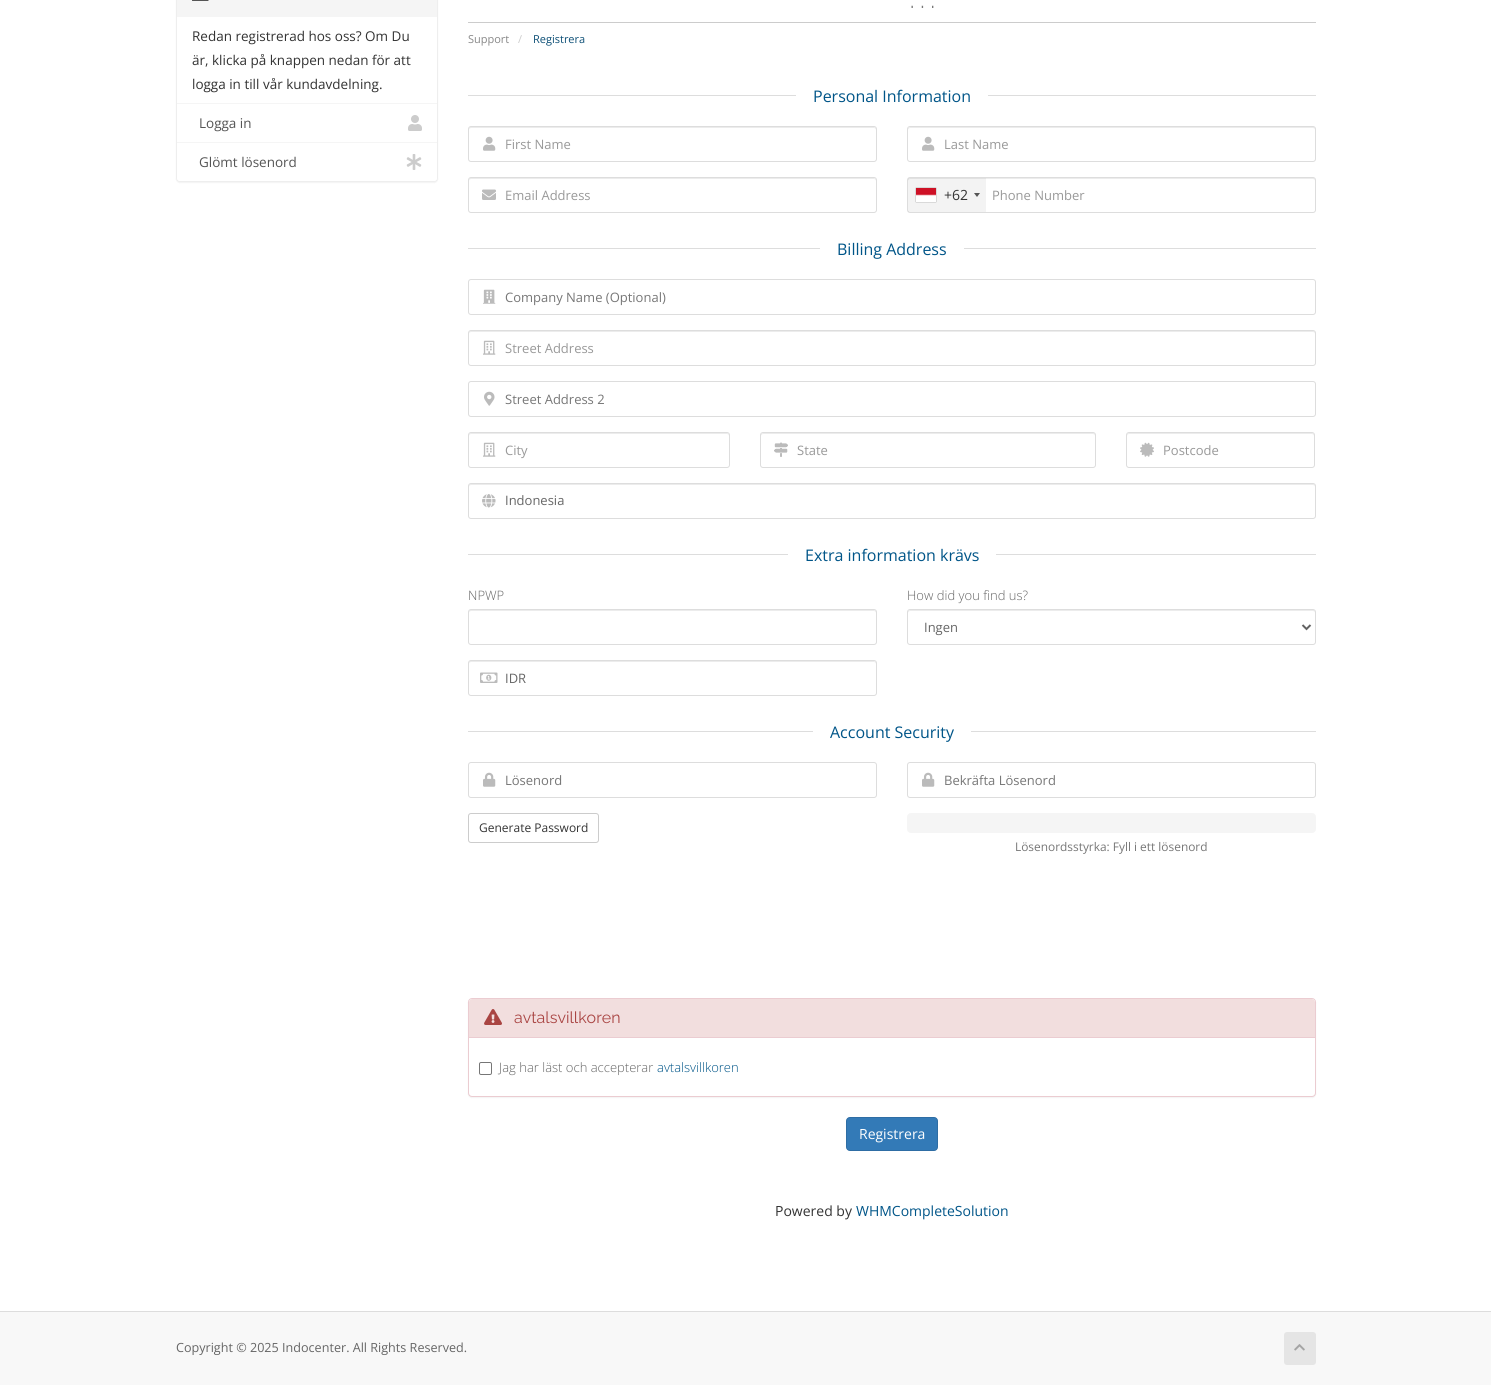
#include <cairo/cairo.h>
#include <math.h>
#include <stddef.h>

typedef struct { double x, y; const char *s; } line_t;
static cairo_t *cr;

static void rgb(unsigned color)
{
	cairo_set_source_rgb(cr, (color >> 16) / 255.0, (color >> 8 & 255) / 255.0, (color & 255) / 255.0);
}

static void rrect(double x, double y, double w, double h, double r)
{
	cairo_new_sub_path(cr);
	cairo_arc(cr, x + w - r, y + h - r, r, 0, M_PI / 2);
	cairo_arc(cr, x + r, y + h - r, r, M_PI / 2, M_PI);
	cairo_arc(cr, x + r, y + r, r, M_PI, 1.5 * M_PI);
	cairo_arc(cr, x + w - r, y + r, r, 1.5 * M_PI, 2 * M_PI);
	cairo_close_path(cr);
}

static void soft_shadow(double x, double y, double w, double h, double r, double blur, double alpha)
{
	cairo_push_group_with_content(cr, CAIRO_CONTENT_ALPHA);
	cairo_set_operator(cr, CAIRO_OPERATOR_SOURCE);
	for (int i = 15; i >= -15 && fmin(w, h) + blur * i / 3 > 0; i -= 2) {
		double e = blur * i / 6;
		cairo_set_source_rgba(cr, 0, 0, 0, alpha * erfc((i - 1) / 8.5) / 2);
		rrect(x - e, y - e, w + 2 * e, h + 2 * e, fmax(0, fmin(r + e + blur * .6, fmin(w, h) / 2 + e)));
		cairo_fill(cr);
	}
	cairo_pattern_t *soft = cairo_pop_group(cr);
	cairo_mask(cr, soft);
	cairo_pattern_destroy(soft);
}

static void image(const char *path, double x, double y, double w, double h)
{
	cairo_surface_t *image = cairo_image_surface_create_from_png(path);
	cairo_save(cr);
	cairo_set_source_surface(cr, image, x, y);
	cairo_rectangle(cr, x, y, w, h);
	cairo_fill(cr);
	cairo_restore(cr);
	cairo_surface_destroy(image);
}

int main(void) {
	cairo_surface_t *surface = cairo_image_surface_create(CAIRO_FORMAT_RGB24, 1491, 1385);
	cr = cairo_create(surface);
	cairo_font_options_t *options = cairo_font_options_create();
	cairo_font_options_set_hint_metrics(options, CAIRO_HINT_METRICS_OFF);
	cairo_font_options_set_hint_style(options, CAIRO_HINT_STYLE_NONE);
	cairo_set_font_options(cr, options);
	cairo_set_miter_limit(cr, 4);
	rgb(0xf8f8f8);
	cairo_paint(cr);
	rgb(0xffffff);
	cairo_rectangle(cr, 0, 0, 1491, 1311);
	cairo_fill(cr);
	rgb(0xcccccc);
	cairo_rectangle(cr, 468, 22, 848, 1);
	cairo_fill(cr);
	rgb(0x000000);
	soft_shadow(176, -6, 262, 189, 4, 0.5, 0.05);
	rgb(0xffffff);
	rrect(176.5, -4.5, 261, 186, 3.5);
	cairo_fill_preserve(cr);
	rgb(0xeeeeee);
	cairo_set_line_width(cr, 1);
	cairo_stroke(cr);
	rgb(0xf5f5f5);
	cairo_rectangle(cr, 177, 0, 260, 17);
	cairo_fill(cr);
	image("img/1.png", 192, 0, 17, 1);
	cairo_rectangle(cr, 177, 103, 260, 1);
	cairo_fill(cr);
	image("img/2.png", 408, 115, 14, 16);
	rgb(0xffffff);
	cairo_new_path(cr);
	cairo_move_to(cr, 177, 142);
	cairo_line_to(cr, 437, 142);
	cairo_line_to(cr, 437, 178);
	cairo_curve_to(cr, 437, 179.5, 435.5, 181, 434, 181);
	cairo_line_to(cr, 180, 181);
	cairo_curve_to(cr, 178.5, 181, 177, 179.5, 177, 178);
	cairo_close_path(cr);
	cairo_fill(cr);
	rgb(0xf5f5f5);
	cairo_rectangle(cr, 177, 142, 260, 1);
	cairo_fill(cr);
	image("img/3.png", 406, 154, 16, 16);
	rgb(0xdddddd);
	cairo_rectangle(cr, 468, 95, 848, 1);
	cairo_fill(cr);
	rgb(0xffffff);
	cairo_rectangle(cr, 796, 95, 192, 1);
	cairo_fill(cr);
	rgb(0xececec);
	cairo_new_path(cr);
	cairo_move_to(cr, 471, 128);
	cairo_line_to(cr, 874, 128);
	cairo_curve_to(cr, 875, 128, 876, 129, 876, 130);
	cairo_line_to(cr, 876, 128);
	cairo_line_to(cr, 874, 127);
	cairo_line_to(cr, 470, 127);
	cairo_curve_to(cr, 469, 128, 469, 129, 469, 130);
	cairo_curve_to(cr, 469, 129, 470, 128, 471, 128);
	cairo_close_path(cr);
	cairo_fill(cr);
	rrect(468.5, 126.5, 408, 35, 2.5);
	rgb(0xdddddd);
	cairo_stroke(cr);
	image("img/4.png", 483, 136, 13, 15);
	rgb(0xececec);
	cairo_new_path(cr);
	cairo_move_to(cr, 910, 128);
	cairo_line_to(cr, 1313, 128);
	cairo_curve_to(cr, 1314, 128, 1315, 129, 1315, 130);
	cairo_curve_to(cr, 1315, 129, 1315, 128, 1314, 127);
	cairo_line_to(cr, 910, 127);
	cairo_line_to(cr, 908, 128);
	cairo_line_to(cr, 908, 130);
	cairo_curve_to(cr, 908, 129, 909, 128, 910, 128);
	cairo_close_path(cr);
	cairo_fill(cr);
	rrect(907.5, 126.5, 408, 35, 2.5);
	rgb(0xdddddd);
	cairo_stroke(cr);
	image("img/4.png", 922, 136, 13, 15);
	rgb(0xececec);
	cairo_new_path(cr);
	cairo_move_to(cr, 471, 179);
	cairo_line_to(cr, 874, 179);
	cairo_curve_to(cr, 875, 179, 876, 180, 876, 181);
	cairo_line_to(cr, 876, 179);
	cairo_line_to(cr, 874, 178);
	cairo_line_to(cr, 470, 178);
	cairo_curve_to(cr, 469, 179, 469, 180, 469, 181);
	cairo_curve_to(cr, 469, 180, 470, 179, 471, 179);
	cairo_close_path(cr);
	cairo_fill(cr);
	rrect(468.5, 177.5, 408, 35, 2.5);
	rgb(0xdddddd);
	cairo_stroke(cr);
	image("img/5.png", 482, 189, 14, 11);
	rgb(0xececec);
	cairo_new_path(cr);
	cairo_move_to(cr, 910, 179);
	cairo_line_to(cr, 1313, 179);
	cairo_curve_to(cr, 1314, 179, 1315, 180, 1315, 181);
	cairo_curve_to(cr, 1315, 180, 1315, 179, 1314, 178);
	cairo_line_to(cr, 910, 178);
	cairo_line_to(cr, 908, 179);
	cairo_line_to(cr, 908, 181);
	cairo_curve_to(cr, 908, 180, 909, 179, 910, 179);
	cairo_close_path(cr);
	cairo_fill(cr);
	rrect(907.5, 177.5, 408, 35, 2.5);
	rgb(0xdddddd);
	cairo_stroke(cr);
	cairo_set_source_rgba(cr, 0, 0, 0, 0.05);
	cairo_rectangle(cr, 908, 178, 78, 34);
	cairo_fill(cr);
	rgb(0x888888);
	soft_shadow(916, 188, 20, 14, 0, 0.5, 1);
	image("img/6.png", 916, 188, 20, 14);
	rgb(0x555555);
	cairo_new_path(cr);
	cairo_move_to(cr, 974, 193);
	cairo_line_to(cr, 980, 193);
	cairo_line_to(cr, 977, 197);
	cairo_close_path(cr);
	cairo_fill(cr);
	rgb(0xdddddd);
	cairo_rectangle(cr, 468, 248, 848, 1);
	cairo_fill(cr);
	rgb(0xffffff);
	cairo_rectangle(cr, 820, 248, 144, 1);
	cairo_fill(cr);
	rrect(468.5, 279.5, 847, 35, 2.5);
	rgb(0xdddddd);
	cairo_stroke(cr);
	image("img/7.png", 483, 289, 13, 15);
	rgb(0xececec);
	cairo_new_path(cr);
	cairo_move_to(cr, 471, 332);
	cairo_line_to(cr, 1313, 332);
	cairo_curve_to(cr, 1314, 332, 1315, 333, 1315, 334);
	cairo_curve_to(cr, 1315, 333, 1315, 331, 1313, 331);
	cairo_line_to(cr, 471, 331);
	cairo_curve_to(cr, 469, 331, 469, 333, 469, 334);
	cairo_curve_to(cr, 469, 333, 470, 332, 471, 332);
	cairo_close_path(cr);
	cairo_fill(cr);
	rrect(468.5, 330.5, 847, 35, 2.5);
	rgb(0xdddddd);
	cairo_stroke(cr);
	image("img/8.png", 483, 340, 13, 15);
	rrect(468.5, 381.5, 847, 35, 2.5);
	cairo_stroke(cr);
	image("img/9.png", 484, 391, 11, 15);
	rgb(0xececec);
	cairo_new_path(cr);
	cairo_move_to(cr, 471, 434);
	cairo_line_to(cr, 727, 434);
	cairo_curve_to(cr, 728, 434, 729, 435, 729, 436);
	cairo_line_to(cr, 729, 435);
	cairo_curve_to(cr, 729, 434, 728, 433, 727, 433);
	cairo_line_to(cr, 471, 433);
	cairo_curve_to(cr, 470, 433, 469, 434, 469, 435);
	cairo_line_to(cr, 469, 436);
	cairo_curve_to(cr, 469, 435, 470, 434, 471, 434);
	cairo_close_path(cr);
	cairo_fill(cr);
	rrect(468.5, 432.5, 261, 35, 2.5);
	rgb(0xdddddd);
	cairo_stroke(cr);
	image("img/8.png", 483, 442, 13, 15);
	rgb(0xececec);
	cairo_new_path(cr);
	cairo_move_to(cr, 763, 434);
	cairo_line_to(cr, 1093, 434);
	cairo_curve_to(cr, 1094, 434, 1095, 435, 1095, 436);
	cairo_curve_to(cr, 1095, 435, 1095, 433, 1093, 433);
	cairo_line_to(cr, 763, 433);
	cairo_line_to(cr, 761, 434);
	cairo_line_to(cr, 761, 436);
	cairo_curve_to(cr, 761, 435, 762, 434, 763, 434);
	cairo_close_path(cr);
	cairo_fill(cr);
	rrect(760.5, 432.5, 335, 35, 2.5);
	rgb(0xdddddd);
	cairo_stroke(cr);
	image("img/10.png", 774, 442, 14, 15);
	image("img/11.png", 774, 442, 14, 15);
	rgb(0xececec);
	cairo_new_path(cr);
	cairo_move_to(cr, 1129, 434);
	cairo_line_to(cr, 1312, 434);
	cairo_curve_to(cr, 1313, 434, 1314, 435, 1314, 436);
	cairo_line_to(cr, 1314, 435);
	cairo_curve_to(cr, 1314, 434, 1313, 433, 1312, 433);
	cairo_line_to(cr, 1129, 433);
	cairo_curve_to(cr, 1128, 433, 1127, 434, 1127, 435);
	cairo_line_to(cr, 1127, 436);
	cairo_curve_to(cr, 1127, 435, 1128, 434, 1129, 434);
	cairo_close_path(cr);
	cairo_fill(cr);
	rrect(1126.5, 432.5, 188, 35, 2.5);
	rgb(0xdddddd);
	cairo_stroke(cr);
	image("img/12.png", 1140, 442, 14, 15);
	rgb(0xececec);
	cairo_new_path(cr);
	cairo_move_to(cr, 471, 485);
	cairo_line_to(cr, 1313, 485);
	cairo_curve_to(cr, 1314, 485, 1315, 486, 1315, 487);
	cairo_curve_to(cr, 1315, 486, 1315, 484, 1313, 484);
	cairo_line_to(cr, 471, 484);
	cairo_curve_to(cr, 469, 484, 469, 486, 469, 487);
	cairo_curve_to(cr, 469, 486, 470, 485, 471, 485);
	cairo_close_path(cr);
	cairo_fill(cr);
	rrect(468.5, 483.5, 847, 35, 2.5);
	rgb(0xdddddd);
	cairo_stroke(cr);
	image("img/13.png", 482, 494, 14, 14);
	cairo_rectangle(cr, 468, 554, 848, 1);
	cairo_fill(cr);
	rgb(0xffffff);
	cairo_rectangle(cr, 788, 554, 208, 1);
	cairo_fill(cr);
	rgb(0xececec);
	cairo_new_path(cr);
	cairo_move_to(cr, 471, 611);
	cairo_line_to(cr, 874, 611);
	cairo_curve_to(cr, 875, 611, 876, 612, 876, 613);
	cairo_line_to(cr, 876, 611);
	cairo_line_to(cr, 874, 610);
	cairo_line_to(cr, 470, 610);
	cairo_curve_to(cr, 469, 611, 469, 612, 469, 613);
	cairo_curve_to(cr, 469, 612, 470, 611, 471, 611);
	cairo_close_path(cr);
	cairo_fill(cr);
	rrect(468.5, 609.5, 408, 35, 2.5);
	rgb(0xdddddd);
	cairo_stroke(cr);
	rgb(0xececec);
	cairo_new_path(cr);
	cairo_move_to(cr, 910, 611);
	cairo_line_to(cr, 1313, 611);
	cairo_curve_to(cr, 1314, 611, 1315, 612, 1315, 613);
	cairo_curve_to(cr, 1315, 612, 1315, 611, 1314, 610);
	cairo_line_to(cr, 910, 610);
	cairo_line_to(cr, 908, 611);
	cairo_line_to(cr, 908, 613);
	cairo_curve_to(cr, 908, 612, 909, 611, 910, 611);
	cairo_close_path(cr);
	cairo_fill(cr);
	rrect(907.5, 609.5, 408, 35, 2.5);
	rgb(0xdddddd);
	cairo_stroke(cr);
	cairo_new_path(cr);
	cairo_move_to(cr, 1302.5, 625);
	cairo_line_to(cr, 1306.5, 629);
	cairo_line_to(cr, 1310.5, 625);
	rgb(0x626262);
	cairo_set_line_width(cr, 2);
	cairo_stroke(cr);
	rgb(0xececec);
	cairo_new_path(cr);
	cairo_move_to(cr, 471, 662);
	cairo_line_to(cr, 874, 662);
	cairo_curve_to(cr, 875, 662, 876, 663, 876, 664);
	cairo_line_to(cr, 876, 662);
	cairo_line_to(cr, 874, 661);
	cairo_line_to(cr, 470, 661);
	cairo_curve_to(cr, 469, 662, 469, 663, 469, 664);
	cairo_curve_to(cr, 469, 663, 470, 662, 471, 662);
	cairo_close_path(cr);
	cairo_fill(cr);
	rrect(468.5, 660.5, 408, 35, 2.5);
	rgb(0xdddddd);
	cairo_set_line_width(cr, 1);
	cairo_stroke(cr);
	image("img/14.png", 480, 672, 18, 11);
	cairo_rectangle(cr, 468, 731, 848, 1);
	cairo_fill(cr);
	rgb(0xffffff);
	cairo_rectangle(cr, 813, 731, 158, 1);
	cairo_fill(cr);
	rrect(468.5, 762.5, 408, 35, 2.5);
	rgb(0xdddddd);
	cairo_stroke(cr);
	image("img/15.png", 483, 772, 13, 15);
	rrect(907.5, 762.5, 408, 35, 2.5);
	cairo_stroke(cr);
	image("img/15.png", 922, 772, 13, 15);
	rrect(468.5, 813.5, 130, 29, 2.5);
	rgb(0xcccccc);
	cairo_stroke(cr);
	rgb(0xf5f5f5);
	rrect(907, 813, 409, 20, 4);
	cairo_fill(cr);
	rgb(0x000000);
	soft_shadow(468, 999, 848, 99, 4, 0.5, 0.05);
	rgb(0xffffff);
	rrect(468.5, 998.5, 847, 98, 3.5);
	cairo_fill_preserve(cr);
	rgb(0xebccd1);
	cairo_stroke(cr);
	rgb(0xf2dede);
	cairo_new_path(cr);
	cairo_move_to(cr, 472, 999);
	cairo_line_to(cr, 1312, 999);
	cairo_curve_to(cr, 1313.5, 999, 1315, 1000.5, 1315, 1002);
	cairo_line_to(cr, 1315, 1038);
	cairo_line_to(cr, 469, 1038);
	cairo_line_to(cr, 469, 1002);
	cairo_curve_to(cr, 469, 1000.5, 470.5, 999, 472, 999);
	cairo_close_path(cr);
	cairo_fill(cr);
	rgb(0xebccd1);
	cairo_rectangle(cr, 469, 1037, 846, 1);
	cairo_fill(cr);
	image("img/16.png", 484, 1009, 18, 16);
	rrect(479.5, 1062.5, 12, 12, 1.5);
	rgb(0x767676);
	cairo_stroke(cr);
	rgb(0x337ab7);
	rrect(846.5, 1117.5, 91, 33, 3.5);
	cairo_fill_preserve(cr);
	rgb(0x2e6da4);
	cairo_stroke(cr);
	rgb(0xdddddd);
	cairo_rectangle(cr, 0, 1311, 1491, 1);
	cairo_fill(cr);
	rgb(0xe5e5e5);
	rrect(1284, 1332, 32, 33, 3);
	cairo_fill(cr);
	image("img/17.png", 1294, 1344, 11, 7);
	cairo_select_font_face(cr, "Raleway", CAIRO_FONT_SLANT_NORMAL, CAIRO_FONT_WEIGHT_NORMAL);
	cairo_set_font_size(cr, 23);
	rgb(0x777777);
	cairo_move_to(cr, 910, 8);
	cairo_show_text(cr, ". . .");
	cairo_select_font_face(cr, "Open Sans", CAIRO_FONT_SLANT_NORMAL, CAIRO_FONT_WEIGHT_NORMAL);
	cairo_set_font_size(cr, 11);
	rgb(0x888888);
	cairo_move_to(cr, 468, 43);
	cairo_show_text(cr, "Support");
	rgb(0xcccccc);
	cairo_move_to(cr, 518, 43);
	cairo_show_text(cr, "/");
	rgb(0x0e5077);
	cairo_move_to(cr, 533, 43);
	cairo_show_text(cr, "Registrera");
	cairo_set_font_size(cr, 13.5);
	rgb(0x333333);
	{
		static const line_t items[] = {
			{192, 41, "Redan registrerad hos oss? Om Du"},
			{192, 65, "är, klicka på knappen nedan för att"},
			{192, 89, "logga in till vår kundavdelning."},
		};
		for (size_t i = 0; i < sizeof items / sizeof *items; i++) {
			cairo_move_to(cr, items[i].x, items[i].y);
			cairo_show_text(cr, items[i].s);
		}
	}
	rgb(0x555555);
	cairo_move_to(cr, 199, 128);
	cairo_show_text(cr, "Logga in");
	cairo_move_to(cr, 199, 167);
	cairo_show_text(cr, "Glömt lösenord");
	cairo_set_font_size(cr, 16);
	rgb(0x005588);
	cairo_move_to(cr, 813, 102);
	cairo_show_text(cr, "Personal Information");
	cairo_set_font_size(cr, 13);
	rgb(0x999999);
	{
		static const line_t items[] = {
			{505, 149, "First Name"},
			{944, 149, "Last Name"},
			{505, 200, "Email Address"},
		};
		for (size_t i = 0; i < sizeof items / sizeof *items; i++) {
			cairo_move_to(cr, items[i].x, items[i].y);
			cairo_show_text(cr, items[i].s);
		}
	}
	cairo_set_font_size(cr, 14);
	rgb(0x333333);
	cairo_move_to(cr, 944, 200);
	cairo_show_text(cr, "+62");
	cairo_set_font_size(cr, 13);
	rgb(0x999999);
	cairo_move_to(cr, 992, 200);
	cairo_show_text(cr, "Phone Number");
	cairo_set_font_size(cr, 16);
	rgb(0x005588);
	cairo_move_to(cr, 837, 255);
	cairo_show_text(cr, "Billing Address");
	cairo_set_font_size(cr, 13);
	rgb(0x777777);
	cairo_move_to(cr, 505, 302);
	cairo_show_text(cr, "Company Name (Optional)");
	rgb(0x999999);
	cairo_move_to(cr, 505, 353);
	cairo_show_text(cr, "Street Address");
	rgb(0x777777);
	cairo_move_to(cr, 505, 404);
	cairo_show_text(cr, "Street Address 2");
	rgb(0x999999);
	{
		static const line_t items[] = {
			{505, 455, "City"},
			{797, 455, "State"},
			{1163, 455, "Postcode"},
		};
		for (size_t i = 0; i < sizeof items / sizeof *items; i++) {
			cairo_move_to(cr, items[i].x, items[i].y);
			cairo_show_text(cr, items[i].s);
		}
	}
	rgb(0x666666);
	cairo_move_to(cr, 505, 505);
	cairo_show_text(cr, "Indonesia");
	cairo_set_font_size(cr, 16);
	rgb(0x005588);
	cairo_move_to(cr, 805, 561);
	cairo_show_text(cr, "Extra information krävs");
	cairo_select_font_face(cr, "Open Sans Light", CAIRO_FONT_SLANT_NORMAL, CAIRO_FONT_WEIGHT_NORMAL);
	cairo_set_font_size(cr, 13);
	rgb(0x666666);
	cairo_move_to(cr, 468, 600);
	cairo_show_text(cr, "NPWP");
	cairo_move_to(cr, 907, 600);
	cairo_show_text(cr, "How did you find us?");
	cairo_select_font_face(cr, "Open Sans", CAIRO_FONT_SLANT_NORMAL, CAIRO_FONT_WEIGHT_NORMAL);
	cairo_move_to(cr, 924, 632);
	cairo_show_text(cr, "Ingen");
	cairo_move_to(cr, 505, 683);
	cairo_show_text(cr, "IDR");
	cairo_set_font_size(cr, 16);
	rgb(0x005588);
	cairo_move_to(cr, 830, 738);
	cairo_show_text(cr, "Account Security");
	cairo_set_font_size(cr, 13);
	rgb(0x777777);
	cairo_move_to(cr, 505, 785);
	cairo_show_text(cr, "Lösenord");
	cairo_move_to(cr, 944, 785);
	cairo_show_text(cr, "Bekräfta Lösenord");
	cairo_set_font_size(cr, 12);
	rgb(0x333333);
	cairo_move_to(cr, 479, 832);
	cairo_show_text(cr, "Generate Password");
	cairo_set_font_size(cr, 11.9);
	rgb(0x777777);
	cairo_move_to(cr, 1015, 851);
	cairo_show_text(cr, "Lösenordsstyrka: Fyll i ett lösenord");
	cairo_select_font_face(cr, "Raleway", CAIRO_FONT_SLANT_NORMAL, CAIRO_FONT_WEIGHT_NORMAL);
	cairo_set_font_size(cr, 16);
	rgb(0xa94442);
	cairo_move_to(cr, 514, 1023);
	cairo_show_text(cr, "avtalsvillkoren");
	cairo_select_font_face(cr, "Open Sans Light", CAIRO_FONT_SLANT_NORMAL, CAIRO_FONT_WEIGHT_NORMAL);
	cairo_set_font_size(cr, 13);
	rgb(0x666666);
	cairo_move_to(cr, 499, 1072);
	cairo_show_text(cr, "Jag har läst och accepterar");
	rgb(0x005588);
	cairo_move_to(cr, 657, 1072);
	cairo_show_text(cr, "avtalsvillkoren");
	cairo_select_font_face(cr, "Open Sans", CAIRO_FONT_SLANT_NORMAL, CAIRO_FONT_WEIGHT_NORMAL);
	cairo_set_font_size(cr, 14);
	rgb(0xffffff);
	cairo_move_to(cr, 859, 1139);
	cairo_show_text(cr, "Registrera");
	rgb(0x333333);
	cairo_move_to(cr, 775, 1216);
	cairo_show_text(cr, "Powered by");
	rgb(0x005588);
	cairo_move_to(cr, 856, 1216);
	cairo_show_text(cr, "WHMCompleteSolution");
	cairo_set_font_size(cr, 12.6);
	rgb(0x666666);
	cairo_move_to(cr, 176, 1352);
	cairo_show_text(cr, "Copyright © 2025 Indocenter. All Rights Reserved.");
	cairo_surface_write_to_png(surface, "page.png");
	cairo_font_options_destroy(options);
	cairo_destroy(cr);
	cairo_surface_destroy(surface);
	return 0;
}
